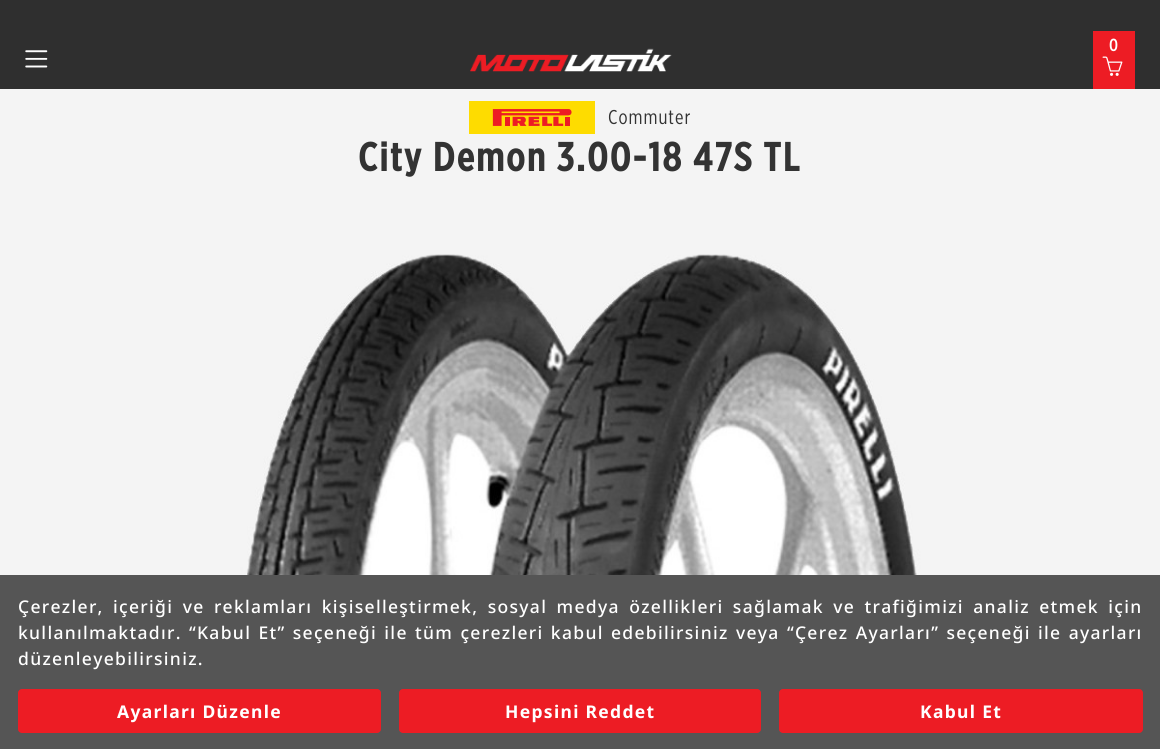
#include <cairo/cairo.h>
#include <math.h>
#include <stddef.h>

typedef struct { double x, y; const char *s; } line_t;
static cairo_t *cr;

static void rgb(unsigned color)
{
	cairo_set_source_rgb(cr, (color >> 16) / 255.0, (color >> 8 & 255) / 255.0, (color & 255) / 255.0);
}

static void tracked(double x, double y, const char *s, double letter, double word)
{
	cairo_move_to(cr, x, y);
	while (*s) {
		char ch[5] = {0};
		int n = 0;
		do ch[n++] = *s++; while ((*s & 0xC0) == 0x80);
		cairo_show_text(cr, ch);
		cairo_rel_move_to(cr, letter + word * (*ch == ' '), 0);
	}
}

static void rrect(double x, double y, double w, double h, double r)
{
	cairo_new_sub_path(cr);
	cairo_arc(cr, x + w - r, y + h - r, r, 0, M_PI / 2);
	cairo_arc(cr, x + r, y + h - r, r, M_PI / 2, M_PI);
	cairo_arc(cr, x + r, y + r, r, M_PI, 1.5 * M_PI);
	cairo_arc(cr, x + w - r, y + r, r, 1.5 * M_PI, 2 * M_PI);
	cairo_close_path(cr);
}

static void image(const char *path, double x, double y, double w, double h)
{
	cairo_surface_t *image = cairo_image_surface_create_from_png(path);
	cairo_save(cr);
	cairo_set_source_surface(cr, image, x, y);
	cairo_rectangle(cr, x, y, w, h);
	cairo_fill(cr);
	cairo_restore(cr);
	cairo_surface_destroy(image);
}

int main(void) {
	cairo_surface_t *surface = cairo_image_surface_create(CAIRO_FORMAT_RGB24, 1160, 749);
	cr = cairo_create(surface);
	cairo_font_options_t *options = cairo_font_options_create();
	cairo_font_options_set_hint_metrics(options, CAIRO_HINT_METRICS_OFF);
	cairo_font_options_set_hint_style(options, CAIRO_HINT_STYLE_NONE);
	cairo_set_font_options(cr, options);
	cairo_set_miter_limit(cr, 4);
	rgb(0xf4f4f4);
	cairo_paint(cr);
	rgb(0x2f2f2f);
	cairo_rectangle(cr, 0, 0, 1160, 89);
	cairo_fill(cr);
	rgb(0xed1c24);
	cairo_rectangle(cr, 1093, 31, 42, 58);
	cairo_fill(cr);
	image("img/1.png", 1102, 56, 21, 20);
	image("img/2.png", 25, 50, 23, 18);
	image("img/3.png", 470, 48, 202, 24);
	image("img/4.png", 469, 101, 126, 33);
	image("img/5.png", 233, 254, 696, 321);
	rgb(0x555555);
	cairo_rectangle(cr, 0, 575, 1160, 174);
	cairo_fill(cr);
	rgb(0xed1c24);
	rrect(18, 689, 363, 44, 4);
	cairo_fill(cr);
	rrect(399, 689, 362, 44, 4);
	cairo_fill(cr);
	rrect(779, 689, 364, 44, 4);
	cairo_fill(cr);
	cairo_select_font_face(cr, "Gotham Medium", CAIRO_FONT_SLANT_NORMAL, CAIRO_FONT_WEIGHT_NORMAL);
	cairo_set_font_size(cr, 17.5);
	rgb(0xffffff);
	tracked(1109, 51, "0", 1, 0);
	cairo_select_font_face(cr, "Gotham", CAIRO_FONT_SLANT_NORMAL, CAIRO_FONT_WEIGHT_NORMAL);
	cairo_set_font_size(cr, 20);
	rgb(0x333333);
	tracked(608, 124, "Commuter", 1, 0);
	cairo_select_font_face(cr, "Gotham", CAIRO_FONT_SLANT_NORMAL, CAIRO_FONT_WEIGHT_BOLD);
	cairo_set_font_size(cr, 40);
	tracked(358, 171, "City Demon 3.00-18 47S TL", 2, 0);
	cairo_select_font_face(cr, "Noto Sans Medium", CAIRO_FONT_SLANT_NORMAL, CAIRO_FONT_WEIGHT_NORMAL);
	cairo_set_font_size(cr, 17.5);
	rgb(0xffffff);
	tracked(18, 613, "Çerezler, içeriği ve reklamları kişiselleştirmek, sosyal medya özellikleri sağlamak ve trafiğimizi analiz etmek için", 1.31, 3.5);
	tracked(18, 639, "kullanılmaktadır. “Kabul Et” seçeneği ile tüm çerezleri kabul edebilirsiniz veya “Çerez Ayarları” seçeneği ile ayarları", 1.31, 1.4);
	tracked(18, 665, "düzenleyebilirsiniz.", 1.31, 0);
	cairo_select_font_face(cr, "Noto Sans", CAIRO_FONT_SLANT_NORMAL, CAIRO_FONT_WEIGHT_BOLD);
	{
		static const line_t items[] = {
			{117, 718, "Ayarları Düzenle"},
			{505, 718, "Hepsini Reddet"},
			{920, 718, "Kabul Et"},
		};
		for (size_t i = 0; i < sizeof items / sizeof *items; i++) {
			tracked(items[i].x, items[i].y, items[i].s, 1.31, 0);
		}
	}
	cairo_surface_write_to_png(surface, "page.png");
	cairo_font_options_destroy(options);
	cairo_destroy(cr);
	cairo_surface_destroy(surface);
	return 0;
}
